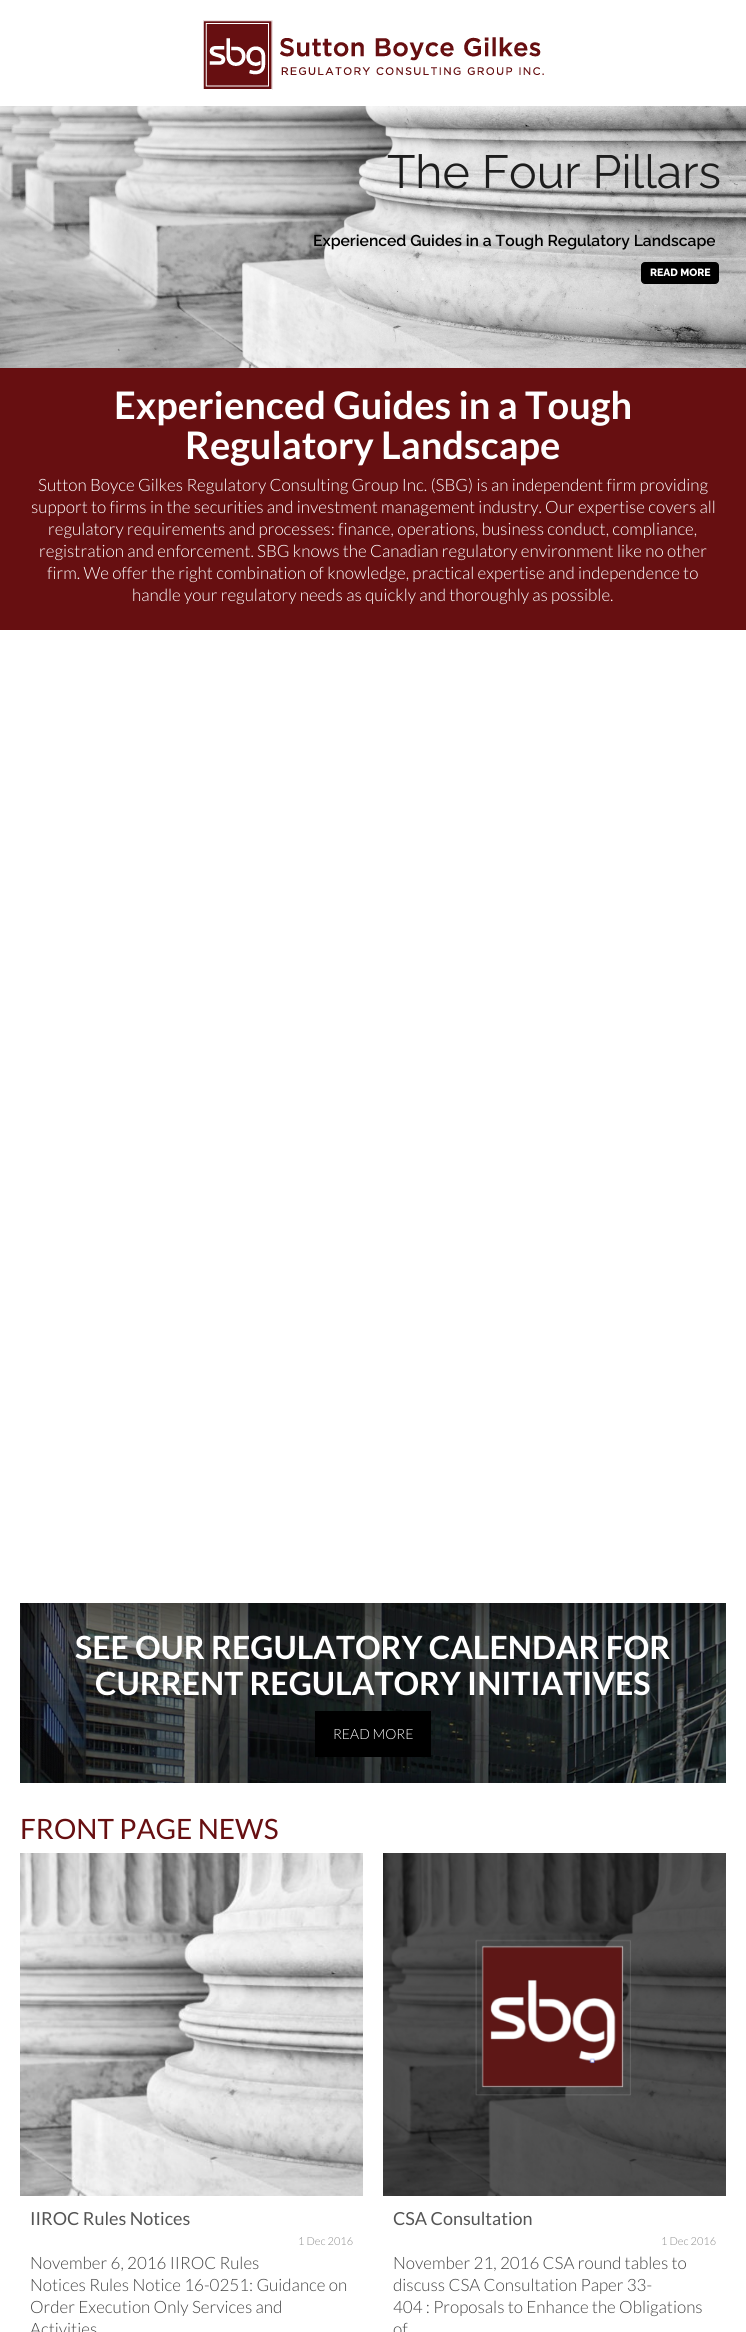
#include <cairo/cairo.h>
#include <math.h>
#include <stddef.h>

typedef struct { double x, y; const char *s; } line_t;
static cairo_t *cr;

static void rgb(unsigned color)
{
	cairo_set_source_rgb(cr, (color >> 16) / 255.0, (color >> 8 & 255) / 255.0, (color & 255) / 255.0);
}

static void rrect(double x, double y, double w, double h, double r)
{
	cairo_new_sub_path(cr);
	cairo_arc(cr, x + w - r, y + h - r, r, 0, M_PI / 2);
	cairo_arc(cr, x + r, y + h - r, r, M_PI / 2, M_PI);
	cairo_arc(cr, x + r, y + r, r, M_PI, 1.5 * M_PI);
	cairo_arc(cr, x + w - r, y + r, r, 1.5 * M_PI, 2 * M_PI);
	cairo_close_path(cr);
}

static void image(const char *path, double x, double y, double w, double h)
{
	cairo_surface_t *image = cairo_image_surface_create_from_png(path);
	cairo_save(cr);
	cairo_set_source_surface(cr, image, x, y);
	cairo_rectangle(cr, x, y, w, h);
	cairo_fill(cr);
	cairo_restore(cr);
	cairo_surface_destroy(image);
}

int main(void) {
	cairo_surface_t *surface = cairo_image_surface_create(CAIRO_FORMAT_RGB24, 746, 2332);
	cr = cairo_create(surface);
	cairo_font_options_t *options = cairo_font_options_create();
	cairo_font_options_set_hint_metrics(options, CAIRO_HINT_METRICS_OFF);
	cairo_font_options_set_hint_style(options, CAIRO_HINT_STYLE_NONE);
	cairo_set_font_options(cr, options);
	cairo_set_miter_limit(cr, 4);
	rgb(0xffffff);
	cairo_paint(cr);
	image("img/1.png", 203, 20, 341, 70);
	image("img/2.png", 0, 106, 746, 262);
	rgb(0x000000);
	rrect(641.5, 262.5, 77, 21, 3.5);
	cairo_fill_preserve(cr);
	cairo_set_line_width(cr, 1);
	cairo_stroke(cr);
	rgb(0x670f11);
	cairo_rectangle(cr, 0, 368, 746, 262);
	cairo_fill(cr);
	image("img/3.png", 20, 1603, 706, 180);
	rgb(0x000000);
	cairo_rectangle(cr, 315, 1711, 116, 46);
	cairo_fill(cr);
	image("img/4.png", 20, 1853, 343, 343);
	image("img/5.png", 383, 1853, 343, 343);
	cairo_select_font_face(cr, "Raleway", CAIRO_FONT_SLANT_NORMAL, CAIRO_FONT_WEIGHT_NORMAL);
	cairo_set_font_size(cr, 46.5);
	rgb(0x1e1e1e);
	cairo_move_to(cr, 387, 188);
	cairo_show_text(cr, "The Four Pillars");
	cairo_select_font_face(cr, "Raleway SemiBold", CAIRO_FONT_SLANT_NORMAL, CAIRO_FONT_WEIGHT_NORMAL);
	cairo_set_font_size(cr, 15.7);
	rgb(0x000000);
	cairo_move_to(cr, 313, 246);
	cairo_show_text(cr, "Experienced Guides in a Tough Regulatory Landscape");
	cairo_select_font_face(cr, "Raleway ExtraBold", CAIRO_FONT_SLANT_NORMAL, CAIRO_FONT_WEIGHT_NORMAL);
	cairo_set_font_size(cr, 10.5);
	rgb(0xffffff);
	cairo_move_to(cr, 650, 276);
	cairo_show_text(cr, "READ MORE");
	cairo_select_font_face(cr, "Lato", CAIRO_FONT_SLANT_NORMAL, CAIRO_FONT_WEIGHT_BOLD);
	cairo_set_font_size(cr, 38);
	cairo_move_to(cr, 114, 419);
	cairo_show_text(cr, "Experienced Guides in a Tough");
	cairo_move_to(cr, 185, 459);
	cairo_show_text(cr, "Regulatory Landscape");
	cairo_select_font_face(cr, "Lato Light", CAIRO_FONT_SLANT_NORMAL, CAIRO_FONT_WEIGHT_NORMAL);
	cairo_set_font_size(cr, 17);
	{
		static const line_t items[] = {
			{38, 491, "Sutton Boyce Gilkes Regulatory Consulting Group Inc. (SBG) is an independent firm providing"},
			{31, 513, "support to firms in the securities and investment management industry. Our expertise covers all"},
			{48, 535, "regulatory requirements and processes: finance, operations, business conduct, compliance,"},
			{39, 557, "registration and enforcement. SBG knows the Canadian regulatory environment like no other"},
			{47, 579, "firm. We offer the right combination of knowledge, practical expertise and independence to"},
			{132, 601, "handle your regulatory needs as quickly and thoroughly as possible."},
		};
		for (size_t i = 0; i < sizeof items / sizeof *items; i++) {
			cairo_move_to(cr, items[i].x, items[i].y);
			cairo_show_text(cr, items[i].s);
		}
	}
	cairo_select_font_face(cr, "Lato", CAIRO_FONT_SLANT_NORMAL, CAIRO_FONT_WEIGHT_BOLD);
	cairo_set_font_size(cr, 32);
	cairo_move_to(cr, 75, 1659);
	cairo_show_text(cr, "SEE OUR REGULATORY CALENDAR FOR");
	cairo_move_to(cr, 95, 1695);
	cairo_show_text(cr, "CURRENT REGULATORY INITIATIVES");
	cairo_select_font_face(cr, "Lato Light", CAIRO_FONT_SLANT_NORMAL, CAIRO_FONT_WEIGHT_NORMAL);
	cairo_set_font_size(cr, 14);
	cairo_move_to(cr, 333, 1739);
	cairo_show_text(cr, "READ MORE");
	cairo_select_font_face(cr, "Lato", CAIRO_FONT_SLANT_NORMAL, CAIRO_FONT_WEIGHT_NORMAL);
	cairo_set_font_size(cr, 28);
	rgb(0x670f11);
	cairo_move_to(cr, 20, 1839);
	cairo_show_text(cr, "FRONT PAGE NEWS");
	cairo_set_font_size(cr, 18);
	rgb(0x555555);
	cairo_move_to(cr, 30, 2225);
	cairo_show_text(cr, "IIROC Rules Notices");
	cairo_select_font_face(cr, "Lato Light", CAIRO_FONT_SLANT_NORMAL, CAIRO_FONT_WEIGHT_NORMAL);
	cairo_set_font_size(cr, 11);
	rgb(0x898989);
	cairo_move_to(cr, 298, 2245);
	cairo_show_text(cr, "1 Dec 2016");
	cairo_set_font_size(cr, 17);
	rgb(0x444444);
	{
		static const line_t items[] = {
			{30, 2269, "November 6, 2016 IIROC Rules"},
			{30, 2291, "Notices Rules Notice 16-0251: Guidance on"},
			{30, 2313, "Order Execution Only Services and"},
			{30, 2335, "Activities"},
		};
		for (size_t i = 0; i < sizeof items / sizeof *items; i++) {
			cairo_move_to(cr, items[i].x, items[i].y);
			cairo_show_text(cr, items[i].s);
		}
	}
	cairo_select_font_face(cr, "Lato", CAIRO_FONT_SLANT_NORMAL, CAIRO_FONT_WEIGHT_NORMAL);
	cairo_set_font_size(cr, 18);
	rgb(0x555555);
	cairo_move_to(cr, 393, 2225);
	cairo_show_text(cr, "CSA Consultation");
	cairo_select_font_face(cr, "Lato Light", CAIRO_FONT_SLANT_NORMAL, CAIRO_FONT_WEIGHT_NORMAL);
	cairo_set_font_size(cr, 11);
	rgb(0x898989);
	cairo_move_to(cr, 661, 2245);
	cairo_show_text(cr, "1 Dec 2016");
	cairo_set_font_size(cr, 17);
	rgb(0x444444);
	{
		static const line_t items[] = {
			{393, 2269, "November 21, 2016 CSA round tables to"},
			{393, 2291, "discuss CSA Consultation Paper 33-"},
			{393, 2313, "404 : Proposals to Enhance the Obligations"},
			{393, 2335, "of"},
		};
		for (size_t i = 0; i < sizeof items / sizeof *items; i++) {
			cairo_move_to(cr, items[i].x, items[i].y);
			cairo_show_text(cr, items[i].s);
		}
	}
	cairo_surface_write_to_png(surface, "page.png");
	cairo_font_options_destroy(options);
	cairo_destroy(cr);
	cairo_surface_destroy(surface);
	return 0;
}
